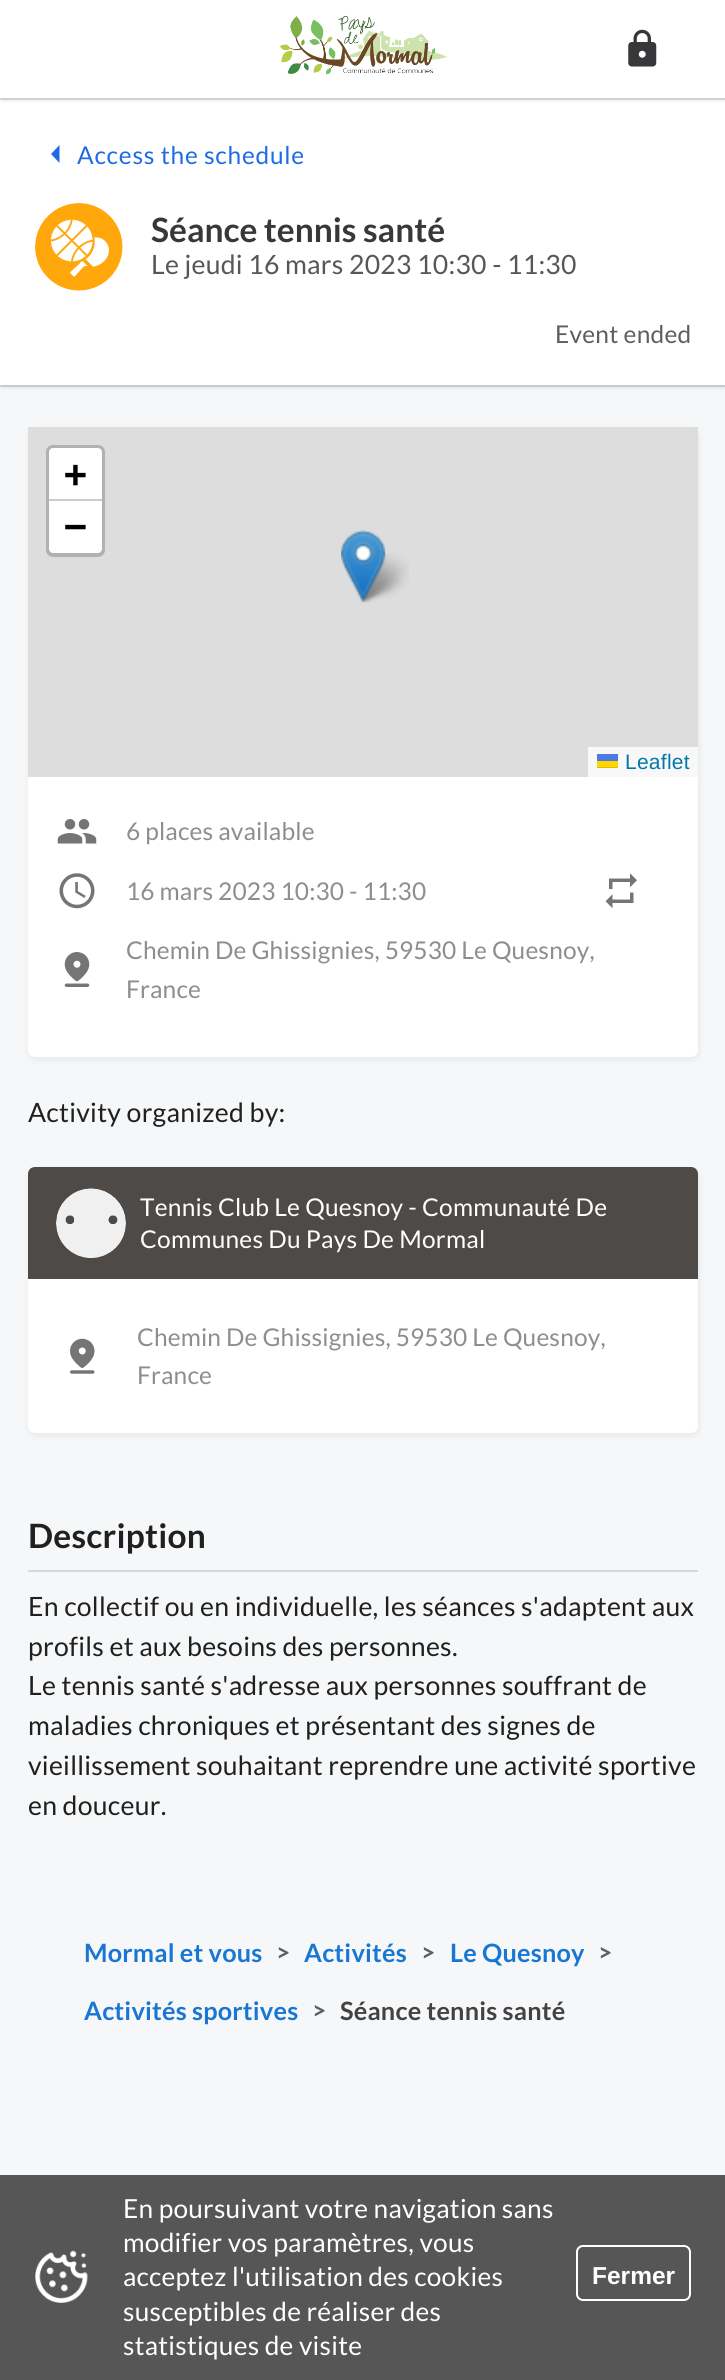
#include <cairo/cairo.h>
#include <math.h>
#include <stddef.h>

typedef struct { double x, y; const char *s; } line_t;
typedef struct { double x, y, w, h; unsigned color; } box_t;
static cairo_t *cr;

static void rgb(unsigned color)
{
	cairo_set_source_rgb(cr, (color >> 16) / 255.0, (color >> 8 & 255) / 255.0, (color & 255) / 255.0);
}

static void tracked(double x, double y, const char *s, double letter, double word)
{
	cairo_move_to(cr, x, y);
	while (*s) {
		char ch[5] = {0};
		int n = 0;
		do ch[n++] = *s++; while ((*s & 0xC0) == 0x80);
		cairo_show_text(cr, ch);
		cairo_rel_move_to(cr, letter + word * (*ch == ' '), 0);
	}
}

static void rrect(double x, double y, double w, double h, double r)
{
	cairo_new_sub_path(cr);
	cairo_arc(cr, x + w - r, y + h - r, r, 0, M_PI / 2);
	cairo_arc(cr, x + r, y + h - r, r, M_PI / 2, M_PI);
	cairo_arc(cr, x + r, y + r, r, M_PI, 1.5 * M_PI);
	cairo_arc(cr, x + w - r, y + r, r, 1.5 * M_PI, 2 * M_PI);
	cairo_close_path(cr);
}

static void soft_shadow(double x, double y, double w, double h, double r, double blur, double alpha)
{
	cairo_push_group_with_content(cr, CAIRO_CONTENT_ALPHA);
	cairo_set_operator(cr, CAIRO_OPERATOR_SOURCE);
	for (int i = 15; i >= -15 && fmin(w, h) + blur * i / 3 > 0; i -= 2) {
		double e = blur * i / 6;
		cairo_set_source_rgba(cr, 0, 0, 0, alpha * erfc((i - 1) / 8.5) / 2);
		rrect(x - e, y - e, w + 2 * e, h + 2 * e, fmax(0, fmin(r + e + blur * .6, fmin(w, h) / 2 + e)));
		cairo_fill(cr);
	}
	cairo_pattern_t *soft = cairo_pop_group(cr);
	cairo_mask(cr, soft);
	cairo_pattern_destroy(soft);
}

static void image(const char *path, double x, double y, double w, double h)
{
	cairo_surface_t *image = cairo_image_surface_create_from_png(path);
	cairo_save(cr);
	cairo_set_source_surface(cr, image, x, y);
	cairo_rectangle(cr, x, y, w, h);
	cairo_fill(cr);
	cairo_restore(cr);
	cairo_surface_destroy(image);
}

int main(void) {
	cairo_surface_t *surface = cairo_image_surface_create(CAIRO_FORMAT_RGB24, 725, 2380);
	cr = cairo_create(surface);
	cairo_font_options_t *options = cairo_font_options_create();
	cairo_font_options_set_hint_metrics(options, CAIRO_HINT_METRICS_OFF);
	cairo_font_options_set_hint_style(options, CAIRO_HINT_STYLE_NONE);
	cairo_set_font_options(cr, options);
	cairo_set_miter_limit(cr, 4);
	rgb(0xf6f7f8);
	cairo_paint(cr);
	rgb(0xd8d9da);
	cairo_rectangle(cr, 0, 385, 725, 2);
	cairo_fill(cr);
	rgb(0x000000);
	soft_shadow(2, 103, 723, 284, 0, 2.5, 0.12);
	rgb(0xe0e0e0);
	cairo_rectangle(cr, 0, 98, 725, 2);
	cairo_fill(cr);
	rgb(0xffffff);
	cairo_rectangle(cr, 0, 100, 725, 285);
	cairo_fill(cr);
	rgb(0x000000);
	soft_shadow(2, 5, 723, 95, 0, 2.5, 0.12);
	rgb(0xffffff);
	cairo_rectangle(cr, 0, 0, 725, 98);
	cairo_fill(cr);
	image("img/1.png", 280, 15, 167, 60);
	image("img/2.png", 628, 29, 29, 38);
	rgb(0x1e6ce5);
	cairo_new_path(cr);
	cairo_move_to(cr, 59.5, 145);
	cairo_line_to(cr, 51, 154);
	cairo_line_to(cr, 59.5, 163);
	cairo_close_path(cr);
	cairo_fill(cr);
	image("img/3.png", 35, 203, 88, 88);
	rgb(0x000000);
	soft_shadow(28, 429, 672, 632, 9, 2.5, 0.05);
	rgb(0xffffff);
	rrect(28, 427, 670, 630, 7);
	cairo_fill(cr);
	rgb(0xdddddd);
	cairo_rectangle(cr, 28, 427, 670, 350);
	cairo_fill(cr);
	rrect(48, 447, 55, 108, 5);
	rgb(0xb1b1b1);
	cairo_set_line_width(cr, 4);
	cairo_stroke(cr);
	rgb(0xffffff);
	cairo_new_path(cr);
	cairo_move_to(cr, 53, 448);
	cairo_line_to(cr, 98, 448);
	cairo_curve_to(cr, 100, 448, 102, 450, 102, 452);
	cairo_line_to(cr, 102, 501);
	cairo_line_to(cr, 49, 501);
	cairo_line_to(cr, 49, 452);
	cairo_curve_to(cr, 49, 450, 51, 448, 53, 448);
	cairo_close_path(cr);
	cairo_fill(cr);
	rgb(0xcccccc);
	cairo_rectangle(cr, 49, 499, 53, 2);
	cairo_fill(cr);
	rgb(0xffffff);
	cairo_new_path(cr);
	cairo_move_to(cr, 49, 501);
	cairo_line_to(cr, 102, 501);
	cairo_line_to(cr, 102, 549);
	cairo_curve_to(cr, 102, 551, 100, 553, 98, 553);
	cairo_line_to(cr, 53, 553);
	cairo_curve_to(cr, 51, 553, 49, 551, 49, 549);
	cairo_close_path(cr);
	cairo_fill(cr);
	{
		static const box_t items[] = {
			{588, 747, 110, 30, 0xf8f8f8},
			{597, 754, 21, 7, 0x4c7be1},
			{597, 761, 21, 6, 0xffd500},
			{597, 767, 21, 1, 0xe0bc00},
		};
		for (size_t i = 0; i < sizeof items / sizeof *items; i++) {
			rgb(items[i].color);
			cairo_rectangle(cr, items[i].x, items[i].y, items[i].w, items[i].h);
			cairo_fill(cr);
		}
	}
	image("img/5.png", 357, 553, 52, 50);
	image("img/4.png", 341, 530, 45, 73);
	image("img/6.png", 57, 819, 40, 25);
	image("img/7.png", 59, 873, 36, 36);
	image("img/8.png", 605, 873, 32, 35);
	image("img/9.png", 64, 952, 26, 35);
	rgb(0x000000);
	soft_shadow(28, 1169, 672, 268, 9, 2.5, 0.05);
	rgb(0xffffff);
	rrect(28, 1167, 670, 266, 7);
	cairo_fill(cr);
	rgb(0x4d4a47);
	cairo_new_path(cr);
	cairo_move_to(cr, 35, 1167);
	cairo_line_to(cr, 691, 1167);
	cairo_curve_to(cr, 695, 1167, 698, 1170, 698, 1174);
	cairo_line_to(cr, 698, 1279);
	cairo_line_to(cr, 28, 1279);
	cairo_line_to(cr, 28, 1174);
	cairo_curve_to(cr, 28, 1170, 31, 1167, 35, 1167);
	cairo_close_path(cr);
	cairo_fill(cr);
	image("img/10.png", 56, 1188, 70, 71);
	image("img/11.png", 70, 1338, 25, 36);
	rgb(0xd8d9da);
	cairo_rectangle(cr, 28, 1570, 670, 2);
	cairo_fill(cr);
	rgb(0x565656);
	cairo_rectangle(cr, 0, 2175, 725, 205);
	cairo_fill(cr);
	image("img/12.png", 35, 2250, 53, 53);
	rrect(577, 2246, 113, 54, 6);
	rgb(0xffffff);
	cairo_set_line_width(cr, 2);
	cairo_stroke(cr);
	cairo_select_font_face(cr, "Lato", CAIRO_FONT_SLANT_NORMAL, CAIRO_FONT_WEIGHT_NORMAL);
	cairo_set_font_size(cr, 24.5);
	rgb(0x1e6ce5);
	tracked(77, 164, "Access the schedule", 0.75, 0);
	cairo_select_font_face(cr, "Lato", CAIRO_FONT_SLANT_NORMAL, CAIRO_FONT_WEIGHT_BOLD);
	cairo_set_font_size(cr, 33.5);
	rgb(0x38373a);
	cairo_move_to(cr, 151, 242);
	cairo_show_text(cr, "Séance tennis santé");
	cairo_select_font_face(cr, "Lato", CAIRO_FONT_SLANT_NORMAL, CAIRO_FONT_WEIGHT_NORMAL);
	cairo_set_font_size(cr, 26.6);
	rgb(0x575757);
	tracked(151, 274, "Le jeudi 16 mars 2023 10:30 - 11:30", 0.25, 0);
	cairo_set_font_size(cr, 24.5);
	rgb(0x5e5e5e);
	tracked(555, 343, "Event ended", 0.25, 0);
	cairo_select_font_face(cr, "DejaVu Sans Mono", CAIRO_FONT_SLANT_NORMAL, CAIRO_FONT_WEIGHT_BOLD);
	cairo_set_font_size(cr, 38);
	rgb(0x000000);
	tracked(64, 487, "+", 0.25, 0);
	tracked(64, 539, "−", 0.25, 0);
	cairo_select_font_face(cr, "Liberation Sans", CAIRO_FONT_SLANT_NORMAL, CAIRO_FONT_WEIGHT_NORMAL);
	cairo_set_font_size(cr, 21);
	rgb(0x0078a8);
	tracked(625, 769, "Leaflet", 0.25, 0);
	cairo_select_font_face(cr, "Lato", CAIRO_FONT_SLANT_NORMAL, CAIRO_FONT_WEIGHT_NORMAL);
	cairo_set_font_size(cr, 24.5);
	rgb(0x8e8e8e);
	{
		static const line_t items[] = {
			{126, 840, "6 places available"},
			{126, 900, "16 mars 2023 10:30 - 11:30"},
			{126, 959, "Chemin De Ghissignies, 59530 Le Quesnoy,"},
			{126, 998, "France"},
		};
		for (size_t i = 0; i < sizeof items / sizeof *items; i++) {
			tracked(items[i].x, items[i].y, items[i].s, 0.15, 0);
		}
	}
	cairo_set_font_size(cr, 26.6);
	rgb(0x202020);
	tracked(28, 1122, "Activity organized by:", 0.25, 0);
	cairo_set_font_size(cr, 24.5);
	rgb(0xffffff);
	tracked(140, 1216, "Tennis Club Le Quesnoy - Communauté De", 0.25, 0);
	tracked(140, 1248, "Communes Du Pays De Mormal", 0.25, 0);
	rgb(0x8e8e8e);
	tracked(137, 1346, "Chemin De Ghissignies, 59530 Le Quesnoy,", 0.15, 0);
	tracked(137, 1384, "France", 0.15, 0);
	cairo_select_font_face(cr, "Lato", CAIRO_FONT_SLANT_NORMAL, CAIRO_FONT_WEIGHT_BOLD);
	cairo_set_font_size(cr, 33.5);
	rgb(0x202020);
	tracked(28, 1548, "Description", 0.25, 0);
	cairo_select_font_face(cr, "Lato", CAIRO_FONT_SLANT_NORMAL, CAIRO_FONT_WEIGHT_NORMAL);
	cairo_set_font_size(cr, 26.6);
	{
		static const line_t items[] = {
			{28, 1616, "En collectif ou en individuelle, les séances s'adaptent aux"},
			{28, 1656, "profils et aux besoins des personnes."},
			{28, 1695, "Le tennis santé s'adresse aux personnes souffrant de"},
			{28, 1735, "maladies chroniques et présentant des signes de"},
			{28, 1775, "vieillissement souhaitant reprendre une activité sportive"},
			{28, 1815, "en douceur."},
		};
		for (size_t i = 0; i < sizeof items / sizeof *items; i++) {
			tracked(items[i].x, items[i].y, items[i].s, 0.25, 0);
		}
	}
	cairo_select_font_face(cr, "Lato", CAIRO_FONT_SLANT_NORMAL, CAIRO_FONT_WEIGHT_BOLD);
	cairo_set_font_size(cr, 25.25);
	rgb(0x1976d2);
	tracked(84, 1962, "Mormal et vous", 0.2, 0);
	cairo_set_font_size(cr, 24.5);
	rgb(0x5e5e5e);
	tracked(276, 1961, ">", 0.25, 0);
	cairo_set_font_size(cr, 25.25);
	rgb(0x1976d2);
	tracked(304, 1962, "Activités", 0.2, 0);
	cairo_set_font_size(cr, 24.5);
	rgb(0x5e5e5e);
	tracked(421, 1961, ">", 0.25, 0);
	cairo_set_font_size(cr, 25.25);
	rgb(0x1976d2);
	tracked(450, 1962, "Le Quesnoy", 0.2, 0);
	cairo_set_font_size(cr, 24.5);
	rgb(0x5e5e5e);
	tracked(598, 1961, ">", 0.25, 0);
	cairo_set_font_size(cr, 25.25);
	rgb(0x1976d2);
	tracked(84, 2020, "Activités sportives", 0.2, 0);
	cairo_set_font_size(cr, 24.5);
	rgb(0x5e5e5e);
	tracked(312, 2019, ">", 0.25, 0);
	cairo_set_font_size(cr, 25.25);
	rgb(0x424242);
	tracked(340, 2020, "Séance tennis santé", 0.2, 0);
	cairo_select_font_face(cr, "Lato", CAIRO_FONT_SLANT_NORMAL, CAIRO_FONT_WEIGHT_NORMAL);
	cairo_set_font_size(cr, 26.25);
	rgb(0xffffff);
	{
		static const line_t items[] = {
			{123, 2218, "En poursuivant votre navigation sans"},
			{123, 2252, "modifier vos paramètres, vous"},
			{123, 2286, "acceptez l'utilisation des cookies"},
			{123, 2321, "susceptibles de réaliser des"},
			{123, 2355, "statistiques de visite"},
		};
		for (size_t i = 0; i < sizeof items / sizeof *items; i++) {
			tracked(items[i].x, items[i].y, items[i].s, 0.25, 0);
		}
	}
	cairo_select_font_face(cr, "Liberation Sans", CAIRO_FONT_SLANT_NORMAL, CAIRO_FONT_WEIGHT_BOLD);
	cairo_set_font_size(cr, 24.5);
	cairo_move_to(cr, 592, 2284);
	cairo_show_text(cr, "Fermer");
	cairo_surface_write_to_png(surface, "page.png");
	cairo_font_options_destroy(options);
	cairo_destroy(cr);
	cairo_surface_destroy(surface);
	return 0;
}
